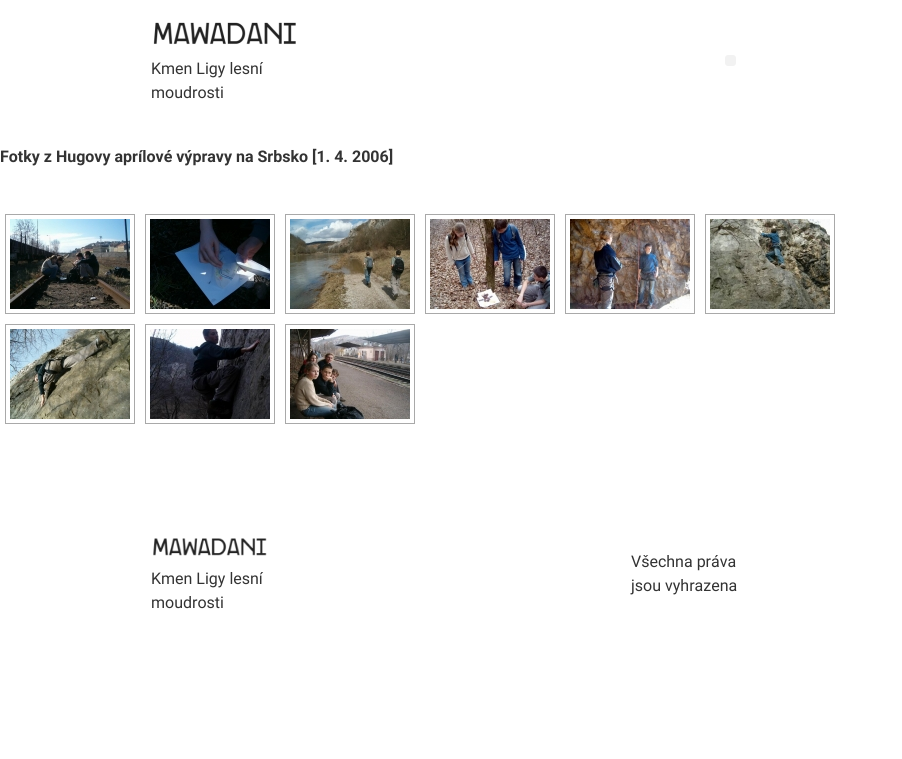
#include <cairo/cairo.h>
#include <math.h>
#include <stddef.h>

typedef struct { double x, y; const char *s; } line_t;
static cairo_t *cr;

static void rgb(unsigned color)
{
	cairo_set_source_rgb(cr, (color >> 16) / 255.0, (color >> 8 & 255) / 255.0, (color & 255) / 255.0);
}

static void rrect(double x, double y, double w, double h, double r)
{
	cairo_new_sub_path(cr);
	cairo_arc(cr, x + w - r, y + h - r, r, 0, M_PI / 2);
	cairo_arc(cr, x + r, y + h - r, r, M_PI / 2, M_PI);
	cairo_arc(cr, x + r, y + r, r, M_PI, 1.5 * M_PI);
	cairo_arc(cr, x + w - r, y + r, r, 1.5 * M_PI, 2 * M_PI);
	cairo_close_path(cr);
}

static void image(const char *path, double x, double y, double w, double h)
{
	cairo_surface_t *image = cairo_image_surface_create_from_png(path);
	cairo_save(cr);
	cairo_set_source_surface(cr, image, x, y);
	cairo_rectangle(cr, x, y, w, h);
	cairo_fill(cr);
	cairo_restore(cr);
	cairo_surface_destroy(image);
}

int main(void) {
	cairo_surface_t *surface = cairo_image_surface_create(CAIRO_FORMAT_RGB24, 902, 759);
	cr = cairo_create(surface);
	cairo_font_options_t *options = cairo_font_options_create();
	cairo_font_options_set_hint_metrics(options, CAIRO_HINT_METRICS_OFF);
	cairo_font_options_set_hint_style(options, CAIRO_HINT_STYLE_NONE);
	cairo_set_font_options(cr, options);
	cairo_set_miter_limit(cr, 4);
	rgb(0xffffff);
	cairo_paint(cr);
	rgb(0xf2f2f2);
	rrect(725, 55, 11, 11, 3);
	cairo_fill(cr);
	image("img/1.png", 153, 22, 143, 23);
	cairo_rectangle(cr, 5.5, 214.5, 129, 99);
	rgb(0xa9a9a9);
	cairo_set_line_width(cr, 1);
	cairo_stroke(cr);
	image("img/2.png", 10, 219, 120, 90);
	cairo_rectangle(cr, 145.5, 214.5, 129, 99);
	cairo_stroke(cr);
	image("img/3.png", 150, 219, 120, 90);
	cairo_rectangle(cr, 285.5, 214.5, 129, 99);
	cairo_stroke(cr);
	image("img/4.png", 290, 219, 120, 90);
	cairo_rectangle(cr, 425.5, 214.5, 129, 99);
	cairo_stroke(cr);
	image("img/5.png", 430, 219, 120, 90);
	cairo_rectangle(cr, 565.5, 214.5, 129, 99);
	cairo_stroke(cr);
	image("img/6.png", 570, 219, 120, 90);
	cairo_rectangle(cr, 705.5, 214.5, 129, 99);
	cairo_stroke(cr);
	image("img/7.png", 710, 219, 120, 90);
	cairo_rectangle(cr, 5.5, 324.5, 129, 99);
	cairo_stroke(cr);
	image("img/8.png", 10, 329, 120, 90);
	cairo_rectangle(cr, 145.5, 324.5, 129, 99);
	cairo_stroke(cr);
	image("img/9.png", 150, 329, 120, 90);
	cairo_rectangle(cr, 285.5, 324.5, 129, 99);
	cairo_stroke(cr);
	image("img/10.png", 290, 329, 120, 90);
	image("img/11.png", 153, 538, 114, 18);
	cairo_select_font_face(cr, "Roboto", CAIRO_FONT_SLANT_NORMAL, CAIRO_FONT_WEIGHT_NORMAL);
	cairo_set_font_size(cr, 16);
	rgb(0x333333);
	cairo_move_to(cr, 151, 74);
	cairo_show_text(cr, "Kmen Ligy lesní");
	cairo_move_to(cr, 151, 98);
	cairo_show_text(cr, "moudrosti");
	cairo_select_font_face(cr, "Roboto", CAIRO_FONT_SLANT_NORMAL, CAIRO_FONT_WEIGHT_BOLD);
	cairo_move_to(cr, 0, 162);
	cairo_show_text(cr, "Fotky z Hugovy aprílové výpravy na Srbsko [1. 4. 2006]");
	cairo_select_font_face(cr, "Roboto", CAIRO_FONT_SLANT_NORMAL, CAIRO_FONT_WEIGHT_NORMAL);
	{
		static const line_t items[] = {
			{151, 584, "Kmen Ligy lesní"},
			{151, 608, "moudrosti"},
			{631, 567, "Všechna práva"},
			{631, 591, "jsou vyhrazena"},
		};
		for (size_t i = 0; i < sizeof items / sizeof *items; i++) {
			cairo_move_to(cr, items[i].x, items[i].y);
			cairo_show_text(cr, items[i].s);
		}
	}
	cairo_surface_write_to_png(surface, "page.png");
	cairo_font_options_destroy(options);
	cairo_destroy(cr);
	cairo_surface_destroy(surface);
	return 0;
}
